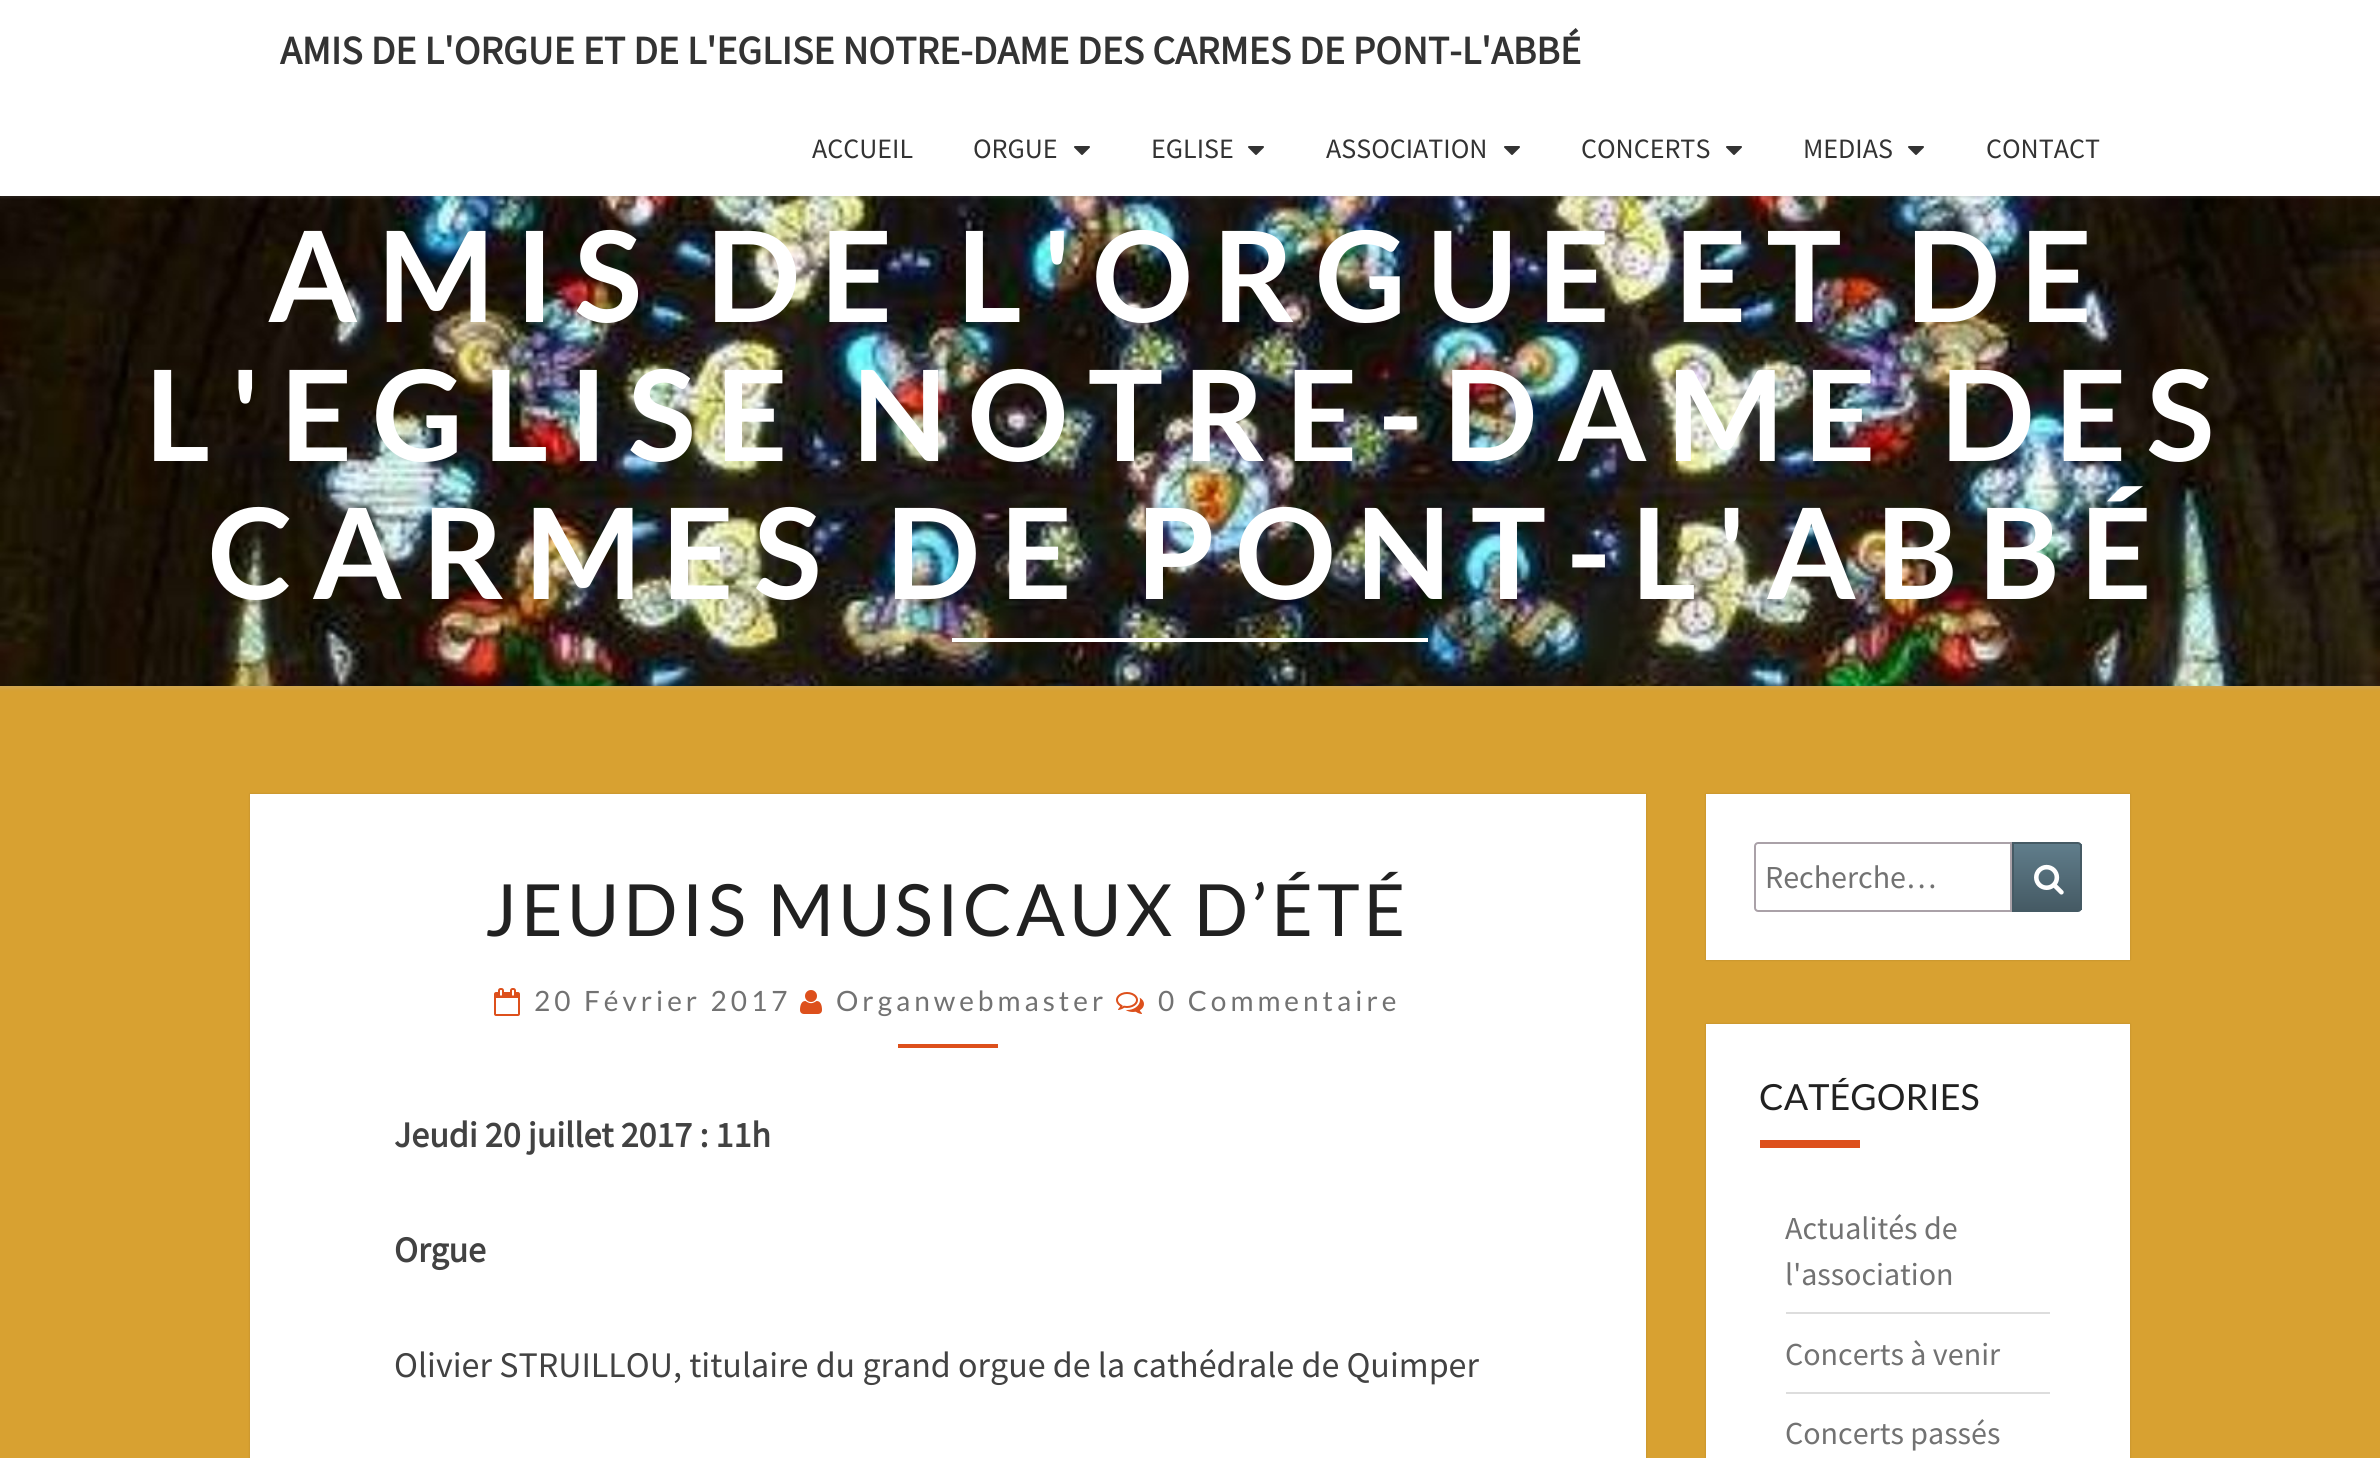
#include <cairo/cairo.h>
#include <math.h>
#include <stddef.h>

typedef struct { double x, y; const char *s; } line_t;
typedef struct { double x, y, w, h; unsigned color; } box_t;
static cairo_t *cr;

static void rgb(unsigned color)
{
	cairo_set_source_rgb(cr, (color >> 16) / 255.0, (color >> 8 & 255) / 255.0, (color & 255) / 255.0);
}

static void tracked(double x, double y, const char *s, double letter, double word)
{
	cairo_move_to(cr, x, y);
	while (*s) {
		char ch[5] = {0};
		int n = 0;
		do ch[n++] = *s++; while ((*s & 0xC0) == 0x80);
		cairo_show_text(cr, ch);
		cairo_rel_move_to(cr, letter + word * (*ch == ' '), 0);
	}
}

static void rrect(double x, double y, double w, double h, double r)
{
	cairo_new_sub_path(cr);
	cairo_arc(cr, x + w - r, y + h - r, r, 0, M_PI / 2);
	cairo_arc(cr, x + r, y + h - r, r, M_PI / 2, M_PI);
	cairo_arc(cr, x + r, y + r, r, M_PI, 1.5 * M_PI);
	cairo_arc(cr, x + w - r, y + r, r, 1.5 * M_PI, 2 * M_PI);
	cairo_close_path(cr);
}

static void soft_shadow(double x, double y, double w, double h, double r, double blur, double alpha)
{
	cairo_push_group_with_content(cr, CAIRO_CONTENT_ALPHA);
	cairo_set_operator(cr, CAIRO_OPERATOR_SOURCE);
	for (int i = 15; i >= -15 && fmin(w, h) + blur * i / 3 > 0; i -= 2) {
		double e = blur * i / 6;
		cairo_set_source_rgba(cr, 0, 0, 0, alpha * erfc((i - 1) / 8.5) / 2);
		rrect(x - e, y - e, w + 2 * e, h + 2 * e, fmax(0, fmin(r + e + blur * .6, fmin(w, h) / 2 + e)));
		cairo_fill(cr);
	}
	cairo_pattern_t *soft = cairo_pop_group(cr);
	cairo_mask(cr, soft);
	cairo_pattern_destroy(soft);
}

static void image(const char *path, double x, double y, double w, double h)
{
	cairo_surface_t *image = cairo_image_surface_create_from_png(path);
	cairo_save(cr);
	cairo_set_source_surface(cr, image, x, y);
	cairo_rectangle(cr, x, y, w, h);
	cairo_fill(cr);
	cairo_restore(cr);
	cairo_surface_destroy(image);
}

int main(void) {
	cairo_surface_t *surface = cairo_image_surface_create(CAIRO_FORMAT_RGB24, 2380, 1458);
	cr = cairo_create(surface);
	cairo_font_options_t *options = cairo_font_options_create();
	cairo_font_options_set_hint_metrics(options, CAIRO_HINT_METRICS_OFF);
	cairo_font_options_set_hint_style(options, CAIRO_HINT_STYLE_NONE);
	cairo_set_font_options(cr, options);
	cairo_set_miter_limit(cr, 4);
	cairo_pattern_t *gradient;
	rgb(0xd8a131);
	cairo_paint(cr);
	rgb(0xb6b6b6);
	soft_shadow(-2, 194, 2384, 494, 0, 2, 0.3);
	image("img/2.png", 0, 196, 2380, 490);
	rgb(0x646464);
	soft_shadow(0, 2, 2380, 196, 0, 1, 0.2);
	rgb(0xffffff);
	cairo_rectangle(cr, 0, 0, 2380, 196);
	cairo_fill(cr);
	image("img/1.png", 1074, 146, 16, 9);
	image("img/1.png", 1248, 146, 16, 9);
	image("img/1.png", 1504, 146, 16, 9);
	image("img/1.png", 1726, 146, 16, 9);
	image("img/1.png", 1908, 146, 16, 9);
	cairo_rectangle(cr, 952, 638, 476, 4);
	cairo_fill(cr);
	rgb(0x000000);
	soft_shadow(250, 794, 1396, 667, 0, 1, 0.15);
	rgb(0xffffff);
	cairo_rectangle(cr, 250, 794, 1396, 664);
	cairo_fill(cr);
	image("img/3.png", 494, 988, 26, 28);
	image("img/4.png", 800, 990, 22, 24);
	image("img/5.png", 1116, 992, 28, 22);
	rgb(0xdd501c);
	cairo_rectangle(cr, 898, 1044, 100, 4);
	cairo_fill(cr);
	rgb(0x000000);
	soft_shadow(1706, 794, 424, 166, 0, 1, 0.15);
	rgb(0xffffff);
	cairo_rectangle(cr, 1706, 794, 424, 166);
	cairo_fill(cr);
	cairo_new_path(cr);
	cairo_move_to(cr, 1758, 843);
	cairo_line_to(cr, 2011, 843);
	cairo_line_to(cr, 2011, 911);
	cairo_line_to(cr, 1758, 911);
	cairo_curve_to(cr, 1756.5, 911, 1755, 909.5, 1755, 908);
	cairo_line_to(cr, 1755, 846);
	cairo_curve_to(cr, 1755, 844.5, 1756.5, 843, 1758, 843);
	cairo_close_path(cr);
	rgb(0xaaa1a8);
	cairo_stroke(cr);
	gradient = cairo_pattern_create_linear(2047, 844, 2047, 910);
	cairo_pattern_add_color_stop_rgba(gradient, 0, 0.376, 0.49, 0.545, 1);
	cairo_pattern_add_color_stop_rgba(gradient, 1, 0.271, 0.353, 0.392, 1);
	cairo_set_source(cr, gradient);
	cairo_pattern_destroy(gradient);
	cairo_rectangle(cr, 2014, 844, 68, 66);
	cairo_fill(cr);
	cairo_new_path(cr);
	cairo_move_to(cr, 2013, 843);
	cairo_line_to(cr, 2078, 843);
	cairo_curve_to(cr, 2079.5, 843, 2081, 844.5, 2081, 846);
	cairo_line_to(cr, 2081, 908);
	cairo_curve_to(cr, 2081, 909.5, 2079.5, 911, 2078, 911);
	cairo_line_to(cr, 2013, 911);
	cairo_close_path(cr);
	rgb(0x455a64);
	cairo_stroke(cr);
	image("img/6.png", 2034, 864, 30, 31);
	rgb(0x000000);
	soft_shadow(1706, 1024, 424, 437, 0, 1, 0.15);
	{
		static const box_t items[] = {
			{1706, 1024, 424, 434, 0xffffff},
			{1760, 1140, 100, 8, 0xdd501c},
			{1786, 1312, 264, 2, 0xdddddd},
			{1786, 1392, 264, 2, 0xdddddd},
		};
		for (size_t i = 0; i < sizeof items / sizeof *items; i++) {
			rgb(items[i].color);
			cairo_rectangle(cr, items[i].x, items[i].y, items[i].w, items[i].h);
			cairo_fill(cr);
		}
	}
	cairo_select_font_face(cr, "Source Sans Pro", CAIRO_FONT_SLANT_NORMAL, CAIRO_FONT_WEIGHT_BOLD);
	cairo_set_font_size(cr, 40);
	rgb(0x333333);
	cairo_move_to(cr, 280, 64);
	cairo_show_text(cr, "AMIS DE L'ORGUE ET DE L'EGLISE NOTRE-DAME DES CARMES DE PONT-L'ABBÉ");
	cairo_select_font_face(cr, "Source Sans Pro", CAIRO_FONT_SLANT_NORMAL, CAIRO_FONT_WEIGHT_NORMAL);
	cairo_set_font_size(cr, 28);
	{
		static const line_t items[] = {
			{812, 158, "ACCUEIL"},
			{973, 158, "ORGUE"},
			{1151, 158, "EGLISE"},
			{1326, 158, "ASSOCIATION"},
			{1581, 158, "CONCERTS"},
			{1803, 158, "MEDIAS"},
			{1986, 158, "CONTACT"},
		};
		for (size_t i = 0; i < sizeof items / sizeof *items; i++) {
			cairo_move_to(cr, items[i].x, items[i].y);
			cairo_show_text(cr, items[i].s);
		}
	}
	cairo_select_font_face(cr, "Lato", CAIRO_FONT_SLANT_NORMAL, CAIRO_FONT_WEIGHT_BOLD);
	cairo_set_font_size(cr, 126);
	rgb(0xffffff);
	{
		static const line_t items[] = {
			{268, 322, "AMIS DE L'ORGUE ET DE"},
			{145, 461, "L'EGLISE NOTRE-DAME DES"},
			{208, 599, "CARMES DE PONT-L'ABBÉ"},
		};
		for (size_t i = 0; i < sizeof items / sizeof *items; i++) {
			tracked(items[i].x, items[i].y, items[i].s, 20, 0);
		}
	}
	cairo_select_font_face(cr, "Lato", CAIRO_FONT_SLANT_NORMAL, CAIRO_FONT_WEIGHT_NORMAL);
	cairo_set_font_size(cr, 72);
	rgb(0x212121);
	tracked(485, 936, "JEUDIS MUSICAUX D’ÉTÉ", 4, 0);
	cairo_set_font_size(cr, 28);
	rgb(0x727272);
	{
		static const line_t items[] = {
			{534, 1011, "20 Février 2017"},
			{836, 1011, "Organwebmaster"},
			{1158, 1011, "0 Commentaire"},
		};
		for (size_t i = 0; i < sizeof items / sizeof *items; i++) {
			tracked(items[i].x, items[i].y, items[i].s, 4, 0);
		}
	}
	cairo_select_font_face(cr, "Source Sans Pro", CAIRO_FONT_SLANT_NORMAL, CAIRO_FONT_WEIGHT_BOLD);
	cairo_set_font_size(cr, 36);
	rgb(0x424242);
	cairo_move_to(cr, 394, 1147);
	cairo_show_text(cr, "Jeudi 20 juillet 2017 : 11h");
	cairo_move_to(cr, 394, 1262);
	cairo_show_text(cr, "Orgue");
	cairo_select_font_face(cr, "Source Sans Pro", CAIRO_FONT_SLANT_NORMAL, CAIRO_FONT_WEIGHT_NORMAL);
	cairo_move_to(cr, 394, 1377);
	cairo_show_text(cr, "Olivier STRUILLOU, titulaire du grand orgue de la cathédrale de Quimper");
	cairo_set_font_size(cr, 32);
	rgb(0x727272);
	cairo_move_to(cr, 1765, 888);
	cairo_show_text(cr, "Recherche…");
	cairo_select_font_face(cr, "Lato", CAIRO_FONT_SLANT_NORMAL, CAIRO_FONT_WEIGHT_NORMAL);
	cairo_set_font_size(cr, 36);
	rgb(0x212121);
	cairo_move_to(cr, 1759, 1110);
	cairo_show_text(cr, "CATÉGORIES");
	cairo_select_font_face(cr, "Source Sans Pro", CAIRO_FONT_SLANT_NORMAL, CAIRO_FONT_WEIGHT_NORMAL);
	cairo_set_font_size(cr, 32);
	rgb(0x727272);
	{
		static const line_t items[] = {
			{1785, 1239, "Actualités de"},
			{1785, 1285, "l'association"},
			{1785, 1365, "Concerts à venir"},
			{1785, 1444, "Concerts passés"},
		};
		for (size_t i = 0; i < sizeof items / sizeof *items; i++) {
			cairo_move_to(cr, items[i].x, items[i].y);
			cairo_show_text(cr, items[i].s);
		}
	}
	cairo_surface_write_to_png(surface, "page.png");
	cairo_font_options_destroy(options);
	cairo_destroy(cr);
	cairo_surface_destroy(surface);
	return 0;
}
